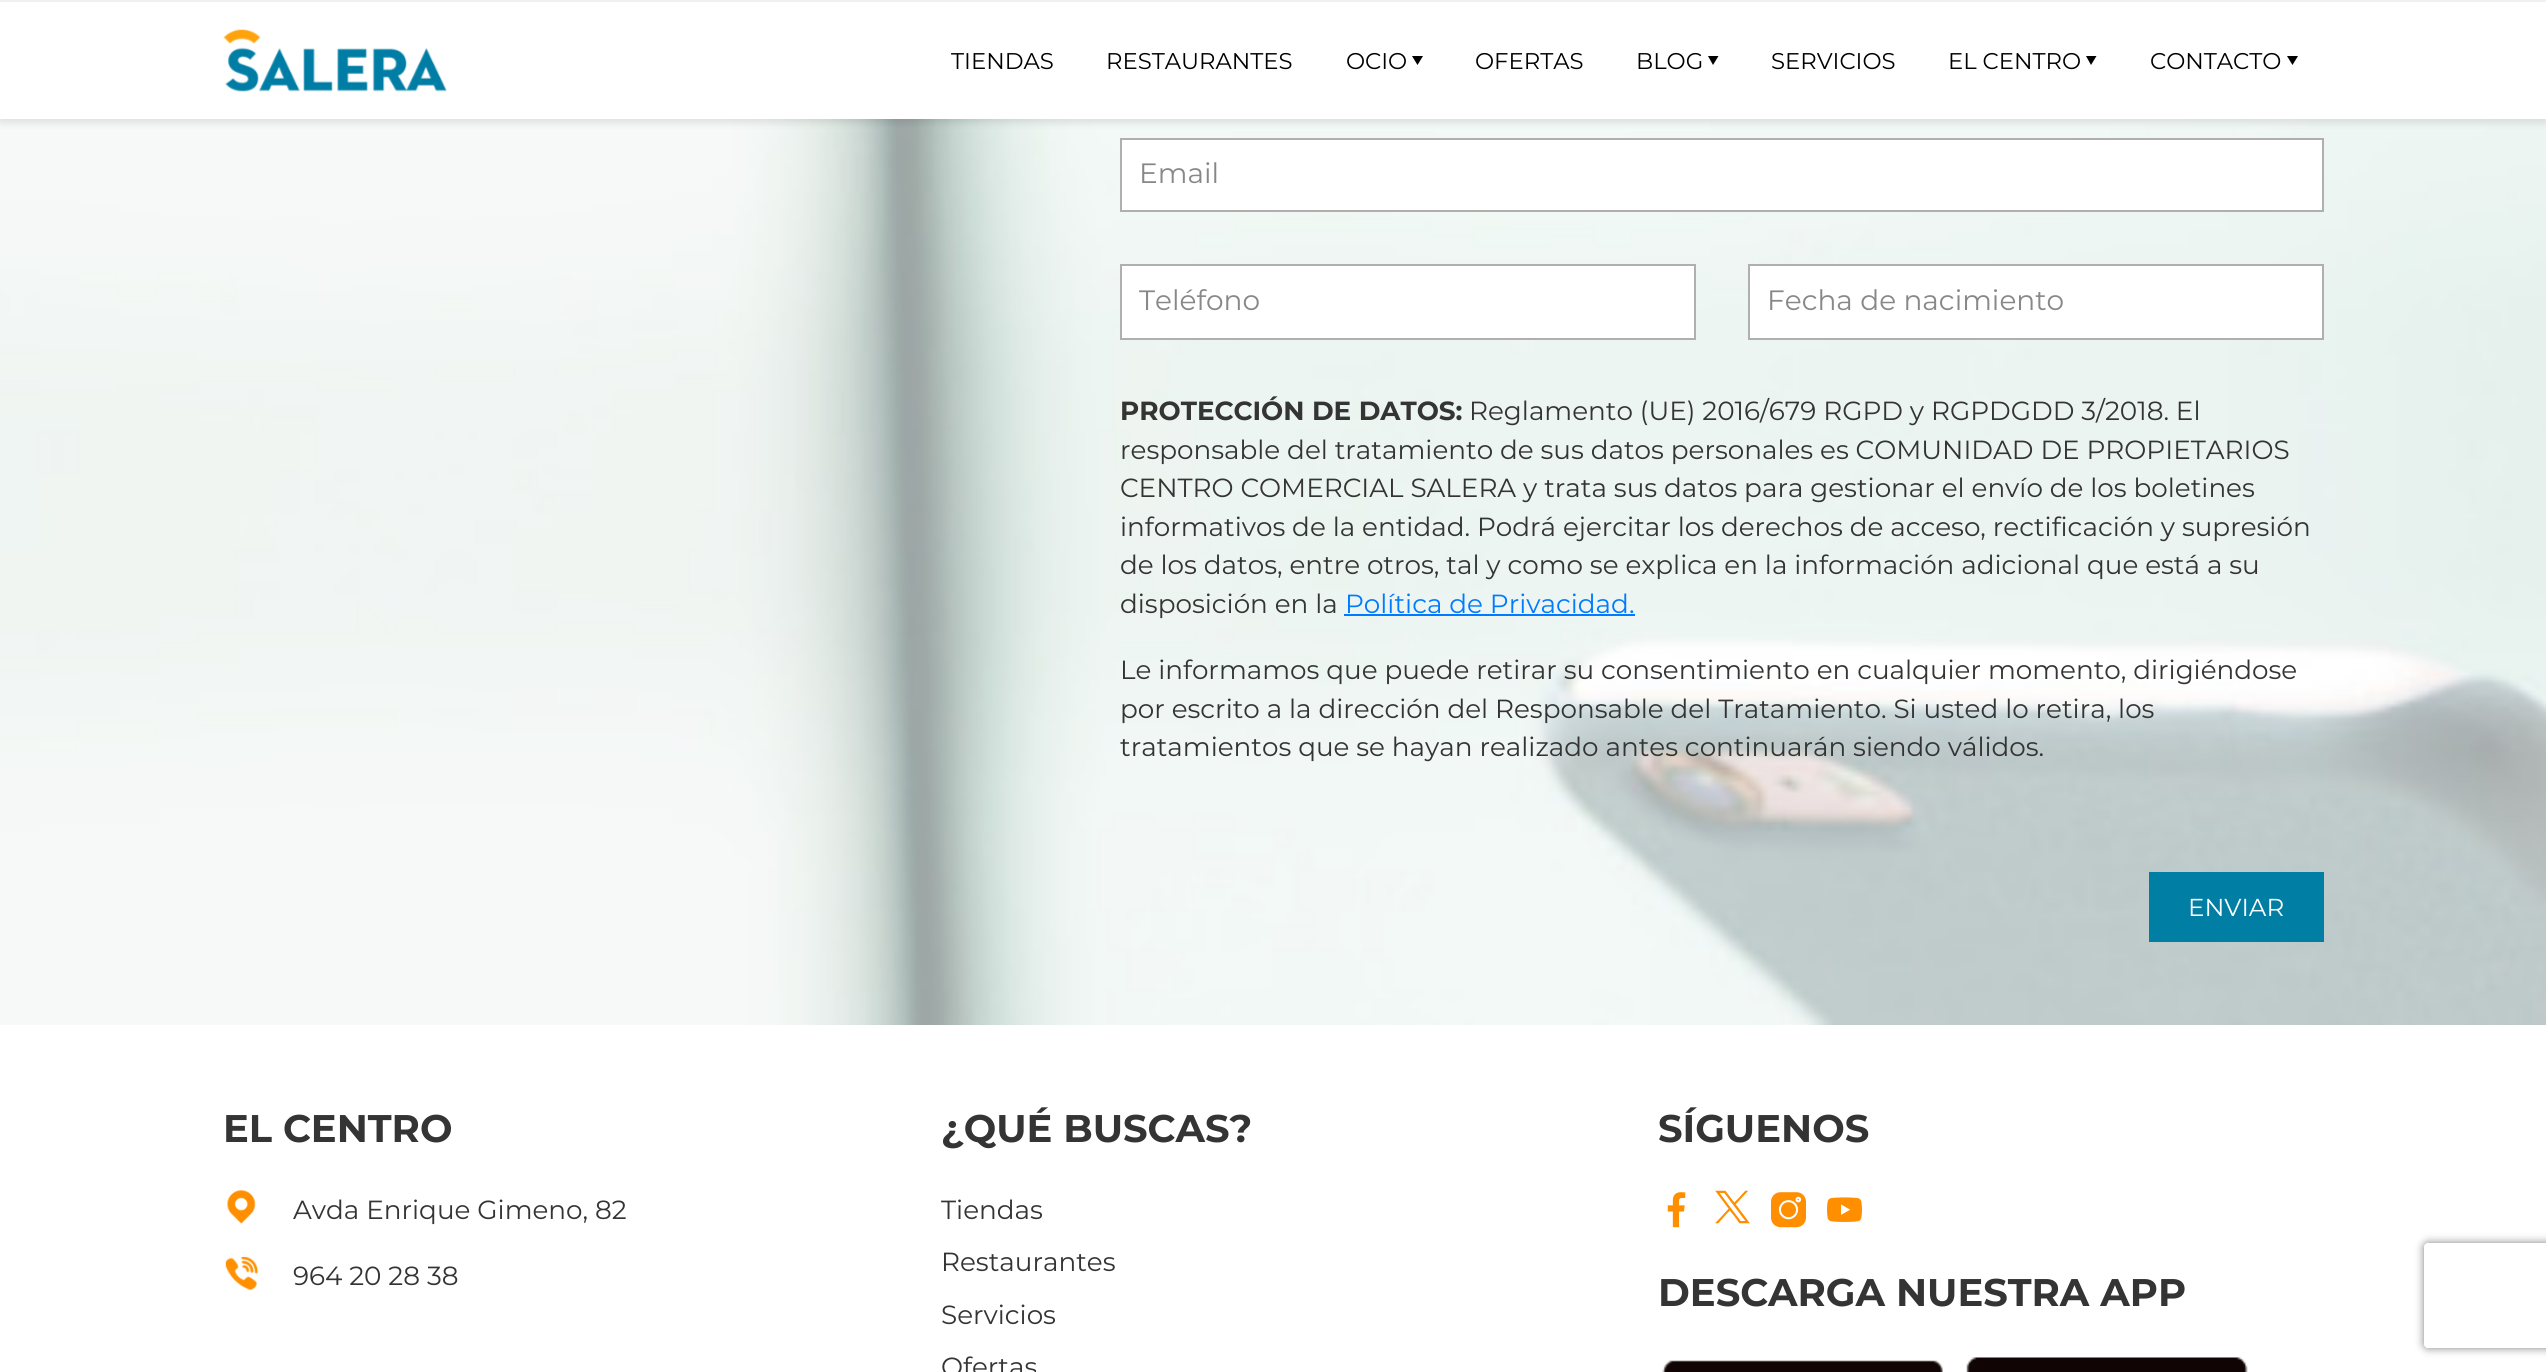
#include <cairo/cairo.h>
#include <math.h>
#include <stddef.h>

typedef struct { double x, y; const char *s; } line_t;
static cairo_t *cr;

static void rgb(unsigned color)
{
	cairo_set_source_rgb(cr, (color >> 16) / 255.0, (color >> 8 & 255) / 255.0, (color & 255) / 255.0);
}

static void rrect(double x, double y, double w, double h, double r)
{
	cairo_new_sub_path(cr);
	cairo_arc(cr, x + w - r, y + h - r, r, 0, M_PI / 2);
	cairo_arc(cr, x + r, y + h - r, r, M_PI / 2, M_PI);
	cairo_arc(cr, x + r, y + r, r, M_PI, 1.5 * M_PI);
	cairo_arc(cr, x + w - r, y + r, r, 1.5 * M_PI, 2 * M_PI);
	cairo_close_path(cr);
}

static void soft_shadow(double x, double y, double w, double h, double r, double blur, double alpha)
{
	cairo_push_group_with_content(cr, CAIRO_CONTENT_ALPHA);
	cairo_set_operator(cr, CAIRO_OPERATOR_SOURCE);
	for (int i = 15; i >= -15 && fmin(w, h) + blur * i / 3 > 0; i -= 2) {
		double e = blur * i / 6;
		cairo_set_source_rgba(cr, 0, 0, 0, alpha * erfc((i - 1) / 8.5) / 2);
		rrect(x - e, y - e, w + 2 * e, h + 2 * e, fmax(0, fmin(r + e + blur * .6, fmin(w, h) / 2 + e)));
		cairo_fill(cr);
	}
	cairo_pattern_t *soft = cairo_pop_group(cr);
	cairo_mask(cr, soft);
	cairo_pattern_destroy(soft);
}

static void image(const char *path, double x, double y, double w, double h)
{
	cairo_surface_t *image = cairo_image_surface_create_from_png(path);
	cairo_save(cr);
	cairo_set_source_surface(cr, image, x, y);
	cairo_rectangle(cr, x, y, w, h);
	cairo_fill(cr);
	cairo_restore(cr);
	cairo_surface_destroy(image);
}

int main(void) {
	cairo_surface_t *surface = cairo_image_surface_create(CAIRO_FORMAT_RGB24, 2546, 1372);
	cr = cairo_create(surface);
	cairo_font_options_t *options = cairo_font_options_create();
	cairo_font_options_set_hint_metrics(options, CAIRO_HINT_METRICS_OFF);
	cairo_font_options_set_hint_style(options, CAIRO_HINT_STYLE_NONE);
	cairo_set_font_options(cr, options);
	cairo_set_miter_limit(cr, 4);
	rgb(0xffffff);
	cairo_paint(cr);
	image("img/2.png", 0, 119, 2546, 906);
	rgb(0x000000);
	soft_shadow(0, -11, 2546, 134, 0, 3.5, 0.1);
	rgb(0xf0f0f0);
	cairo_rectangle(cr, 0, 0, 2546, 2);
	cairo_fill(cr);
	rgb(0xffffff);
	cairo_rectangle(cr, 0, 2, 2546, 117);
	cairo_fill(cr);
	image("img/1.png", 223, 29, 224, 63);
	rgb(0x000000);
	cairo_new_path(cr);
	cairo_move_to(cr, 1412, 56);
	cairo_line_to(cr, 1423, 56);
	cairo_line_to(cr, 1417.5, 65);
	cairo_close_path(cr);
	cairo_fill(cr);
	cairo_new_path(cr);
	cairo_move_to(cr, 1708, 56);
	cairo_line_to(cr, 1718.5, 56);
	cairo_line_to(cr, 1713, 65);
	cairo_close_path(cr);
	cairo_fill(cr);
	cairo_new_path(cr);
	cairo_move_to(cr, 2086, 56);
	cairo_line_to(cr, 2096.5, 56);
	cairo_line_to(cr, 2091, 65);
	cairo_close_path(cr);
	cairo_fill(cr);
	cairo_new_path(cr);
	cairo_move_to(cr, 2287, 56);
	cairo_line_to(cr, 2298, 56);
	cairo_line_to(cr, 2292.5, 65);
	cairo_close_path(cr);
	cairo_fill(cr);
	rgb(0xffffff);
	cairo_rectangle(cr, 1121, 139, 1202, 72);
	cairo_fill_preserve(cr);
	rgb(0xafafaf);
	cairo_stroke(cr);
	rgb(0xffffff);
	cairo_rectangle(cr, 1121, 265, 574, 74);
	cairo_fill_preserve(cr);
	rgb(0xafafaf);
	cairo_stroke(cr);
	rgb(0xffffff);
	cairo_rectangle(cr, 1749, 265, 574, 74);
	cairo_fill_preserve(cr);
	rgb(0xafafaf);
	cairo_stroke(cr);
	rgb(0x007bff);
	cairo_rectangle(cr, 1344, 614, 291, 2);
	cairo_fill(cr);
	rgb(0x017ea4);
	cairo_rectangle(cr, 2149, 872, 175, 70);
	cairo_fill(cr);
	cairo_save(cr);
	cairo_set_fill_rule(cr, CAIRO_FILL_RULE_EVEN_ODD);
	cairo_new_path(cr);
	cairo_move_to(cr, 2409, 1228);
	cairo_line_to(cr, 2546, 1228);
	cairo_line_to(cr, 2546, 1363);
	cairo_line_to(cr, 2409, 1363);
	cairo_close_path(cr);
	cairo_move_to(cr, 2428, 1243);
	cairo_line_to(cr, 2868, 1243);
	cairo_curve_to(cr, 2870, 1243, 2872, 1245, 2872, 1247);
	cairo_line_to(cr, 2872, 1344);
	cairo_curve_to(cr, 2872, 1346, 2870, 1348, 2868, 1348);
	cairo_line_to(cr, 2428, 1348);
	cairo_curve_to(cr, 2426, 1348, 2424, 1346, 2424, 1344);
	cairo_line_to(cr, 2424, 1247);
	cairo_curve_to(cr, 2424, 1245, 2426, 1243, 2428, 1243);
	cairo_close_path(cr);
	cairo_clip(cr);
	rgb(0x808080);
	soft_shadow(2424, 1243, 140, 105, 4, 4.5, 1);
	cairo_restore(cr);
	image("img/3.png", 227, 1190, 29, 34);
	image("img/4.png", 225, 1256, 34, 35);
	image("img/5.png", 1667, 1192, 19, 36);
	image("img/6.png", 1715, 1190, 35, 34);
	image("img/7.png", 1771, 1192, 35, 36);
	image("img/8.png", 1827, 1197, 35, 25);
	image("img/9.png", 1662, 1360, 281, 12);
	image("img/10.png", 1966, 1357, 282, 15);
	cairo_select_font_face(cr, "Montserrat", CAIRO_FONT_SLANT_NORMAL, CAIRO_FONT_WEIGHT_NORMAL);
	cairo_set_font_size(cr, 22.75);
	rgb(0x000000);
	{
		static const line_t items[] = {
			{951, 69, "TIENDAS"},
			{1106, 69, "RESTAURANTES"},
			{1346, 69, "OCIO"},
			{1475, 69, "OFERTAS"},
			{1636, 69, "BLOG"},
			{1771, 69, "SERVICIOS"},
			{1948, 69, "EL CENTRO"},
			{2150, 69, "CONTACTO"},
		};
		for (size_t i = 0; i < sizeof items / sizeof *items; i++) {
			cairo_move_to(cr, items[i].x, items[i].y);
			cairo_show_text(cr, items[i].s);
		}
	}
	cairo_set_font_size(cr, 28);
	rgb(0x888888);
	{
		static const line_t items[] = {
			{1139, 183, "Email"},
			{1139, 310, "Teléfono"},
			{1767, 310, "Fecha de nacimiento"},
		};
		for (size_t i = 0; i < sizeof items / sizeof *items; i++) {
			cairo_move_to(cr, items[i].x, items[i].y);
			cairo_show_text(cr, items[i].s);
		}
	}
	cairo_select_font_face(cr, "Montserrat", CAIRO_FONT_SLANT_NORMAL, CAIRO_FONT_WEIGHT_BOLD);
	cairo_set_font_size(cr, 26.25);
	rgb(0x343434);
	cairo_move_to(cr, 1120, 420);
	cairo_show_text(cr, "PROTECCIÓN DE DATOS:");
	cairo_select_font_face(cr, "Montserrat", CAIRO_FONT_SLANT_NORMAL, CAIRO_FONT_WEIGHT_NORMAL);
	{
		static const line_t items[] = {
			{1469, 420, "Reglamento (UE) 2016/679 RGPD y RGPDGDD 3/2018. El"},
			{1120, 459, "responsable del tratamiento de sus datos personales es COMUNIDAD DE PROPIETARIOS"},
			{1120, 497, "CENTRO COMERCIAL SALERA y trata sus datos para gestionar el envío de los boletines"},
			{1120, 536, "informativos de la entidad. Podrá ejercitar los derechos de acceso, rectificación y supresión"},
			{1120, 574, "de los datos, entre otros, tal y como se explica en la información adicional que está a su"},
			{1120, 613, "disposición en la"},
		};
		for (size_t i = 0; i < sizeof items / sizeof *items; i++) {
			cairo_move_to(cr, items[i].x, items[i].y);
			cairo_show_text(cr, items[i].s);
		}
	}
	rgb(0x007bff);
	cairo_move_to(cr, 1345, 613);
	cairo_show_text(cr, "Política de Privacidad.");
	rgb(0x343434);
	{
		static const line_t items[] = {
			{1120, 679, "Le informamos que puede retirar su consentimiento en cualquier momento, dirigiéndose"},
			{1120, 718, "por escrito a la dirección del Responsable del Tratamiento. Si usted lo retira, los"},
			{1120, 756, "tratamientos que se hayan realizado antes continuarán siendo válidos."},
		};
		for (size_t i = 0; i < sizeof items / sizeof *items; i++) {
			cairo_move_to(cr, items[i].x, items[i].y);
			cairo_show_text(cr, items[i].s);
		}
	}
	cairo_set_font_size(cr, 24.5);
	rgb(0xffffff);
	cairo_move_to(cr, 2188, 916);
	cairo_show_text(cr, "ENVIAR");
	cairo_select_font_face(cr, "Montserrat", CAIRO_FONT_SLANT_NORMAL, CAIRO_FONT_WEIGHT_BOLD);
	cairo_set_font_size(cr, 38.5);
	rgb(0x343434);
	cairo_move_to(cr, 223, 1142);
	cairo_show_text(cr, "EL CENTRO");
	cairo_select_font_face(cr, "Montserrat", CAIRO_FONT_SLANT_NORMAL, CAIRO_FONT_WEIGHT_NORMAL);
	cairo_set_font_size(cr, 26.25);
	cairo_move_to(cr, 293, 1219);
	cairo_show_text(cr, "Avda Enrique Gimeno, 82");
	cairo_move_to(cr, 293, 1285);
	cairo_show_text(cr, "964 20 28 38");
	cairo_select_font_face(cr, "Montserrat", CAIRO_FONT_SLANT_NORMAL, CAIRO_FONT_WEIGHT_BOLD);
	cairo_set_font_size(cr, 38.5);
	cairo_move_to(cr, 941, 1142);
	cairo_show_text(cr, "¿QUÉ BUSCAS?");
	cairo_select_font_face(cr, "Montserrat", CAIRO_FONT_SLANT_NORMAL, CAIRO_FONT_WEIGHT_NORMAL);
	cairo_set_font_size(cr, 26.25);
	{
		static const line_t items[] = {
			{941, 1219, "Tiendas"},
			{941, 1271, "Restaurantes"},
			{941, 1324, "Servicios"},
			{941, 1376, "Ofertas"},
		};
		for (size_t i = 0; i < sizeof items / sizeof *items; i++) {
			cairo_move_to(cr, items[i].x, items[i].y);
			cairo_show_text(cr, items[i].s);
		}
	}
	cairo_select_font_face(cr, "Montserrat", CAIRO_FONT_SLANT_NORMAL, CAIRO_FONT_WEIGHT_BOLD);
	cairo_set_font_size(cr, 38.5);
	cairo_move_to(cr, 1658, 1142);
	cairo_show_text(cr, "SÍGUENOS");
	cairo_move_to(cr, 1658, 1306);
	cairo_show_text(cr, "DESCARGA NUESTRA APP");
	cairo_surface_write_to_png(surface, "page.png");
	cairo_font_options_destroy(options);
	cairo_destroy(cr);
	cairo_surface_destroy(surface);
	return 0;
}
